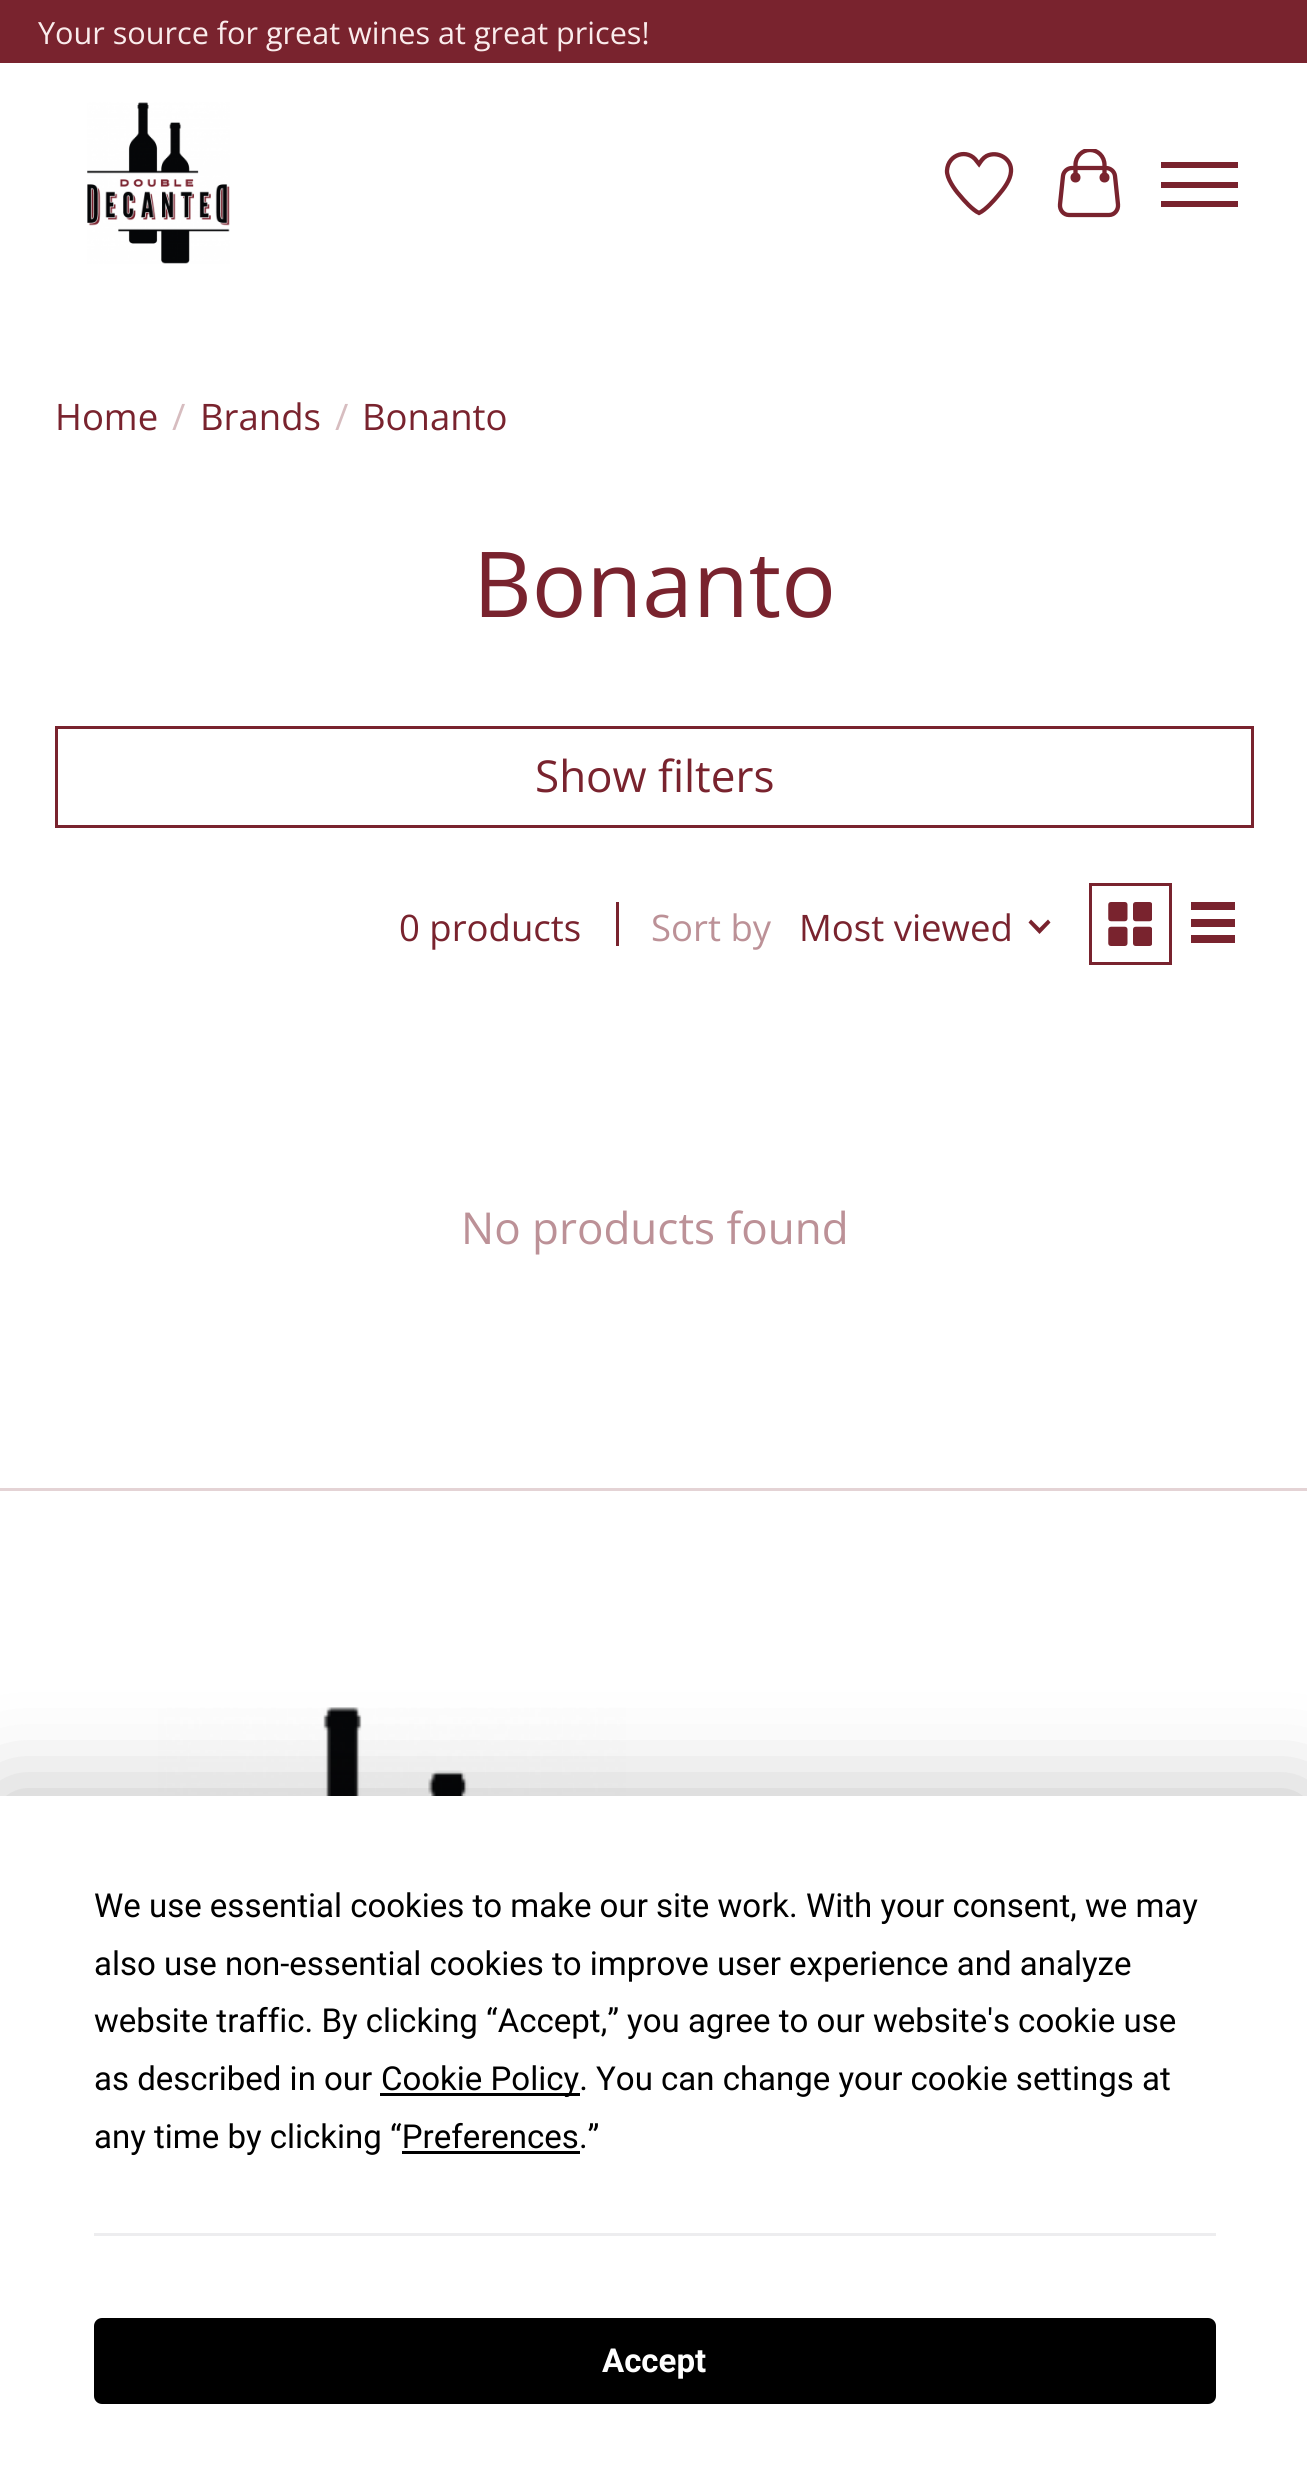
#include <cairo/cairo.h>
#include <math.h>
#include <stddef.h>

typedef struct { double x, y; const char *s; } line_t;
typedef struct { double x, y, w, h; unsigned color; } box_t;
static cairo_t *cr;

static void rgb(unsigned color)
{
	cairo_set_source_rgb(cr, (color >> 16) / 255.0, (color >> 8 & 255) / 255.0, (color & 255) / 255.0);
}

static void rrect(double x, double y, double w, double h, double r)
{
	cairo_new_sub_path(cr);
	cairo_arc(cr, x + w - r, y + h - r, r, 0, M_PI / 2);
	cairo_arc(cr, x + r, y + h - r, r, M_PI / 2, M_PI);
	cairo_arc(cr, x + r, y + r, r, M_PI, 1.5 * M_PI);
	cairo_arc(cr, x + w - r, y + r, r, 1.5 * M_PI, 2 * M_PI);
	cairo_close_path(cr);
}

static void soft_shadow(double x, double y, double w, double h, double r, double blur, double alpha)
{
	cairo_push_group_with_content(cr, CAIRO_CONTENT_ALPHA);
	cairo_set_operator(cr, CAIRO_OPERATOR_SOURCE);
	for (int i = 15; i >= -15 && fmin(w, h) + blur * i / 3 > 0; i -= 2) {
		double e = blur * i / 6;
		cairo_set_source_rgba(cr, 0, 0, 0, alpha * erfc((i - 1) / 8.5) / 2);
		rrect(x - e, y - e, w + 2 * e, h + 2 * e, fmax(0, fmin(r + e + blur * .6, fmin(w, h) / 2 + e)));
		cairo_fill(cr);
	}
	cairo_pattern_t *soft = cairo_pop_group(cr);
	cairo_mask(cr, soft);
	cairo_pattern_destroy(soft);
}

static void image(const char *path, double x, double y, double w, double h)
{
	cairo_surface_t *image = cairo_image_surface_create_from_png(path);
	cairo_save(cr);
	cairo_set_source_surface(cr, image, x, y);
	cairo_rectangle(cr, x, y, w, h);
	cairo_fill(cr);
	cairo_restore(cr);
	cairo_surface_destroy(image);
}

int main(void) {
	cairo_surface_t *surface = cairo_image_surface_create(CAIRO_FORMAT_RGB24, 1307, 2485);
	cr = cairo_create(surface);
	cairo_font_options_t *options = cairo_font_options_create();
	cairo_font_options_set_hint_metrics(options, CAIRO_HINT_METRICS_OFF);
	cairo_font_options_set_hint_style(options, CAIRO_HINT_STYLE_NONE);
	cairo_set_font_options(cr, options);
	cairo_set_miter_limit(cr, 4);
	rgb(0xffffff);
	cairo_paint(cr);
	rgb(0x79232e);
	cairo_rectangle(cr, 0, 0, 1307, 63);
	cairo_fill(cr);
	image("img/1.png", 87, 102, 143, 162);
	cairo_new_path(cr);
	cairo_move_to(cr, 977, 161.5);
	cairo_line_to(cr, 979, 164);
	cairo_curve_to(cr, 981, 161, 983, 158, 986.5, 156);
	cairo_curve_to(cr, 997.5, 150.5, 1012, 158.5, 1011, 171.5);
	cairo_curve_to(cr, 1010.5, 180, 1004, 188.5, 998.5, 195);
	cairo_curve_to(cr, 994, 200.5, 985.5, 210, 979, 213);
	cairo_curve_to(cr, 972.5, 210, 964, 200.5, 959.5, 195);
	cairo_curve_to(cr, 954.5, 189.5, 946.5, 178, 947, 170.5);
	cairo_curve_to(cr, 948, 154, 968, 148, 977, 161.5);
	cairo_close_path(cr);
	cairo_set_line_width(cr, 4.3);
	cairo_stroke(cr);
	cairo_new_path(cr);
	cairo_move_to(cr, 1063, 176);
	cairo_curve_to(cr, 1063.5, 171.5, 1067.5, 168, 1072, 168);
	cairo_line_to(cr, 1106, 168);
	cairo_curve_to(cr, 1110.5, 168, 1114.5, 171.5, 1115, 176);
	cairo_line_to(cr, 1118, 204.5);
	cairo_curve_to(cr, 1118.5, 210, 1114.5, 215, 1109, 215);
	cairo_line_to(cr, 1069, 215);
	cairo_curve_to(cr, 1063.5, 215, 1059.5, 210, 1060, 204.5);
	cairo_close_path(cr);
	cairo_stroke(cr);
	cairo_save(cr);
	cairo_rectangle(cr, 1053, 149, 72, 71);
	cairo_clip(cr);
	cairo_new_path(cr);
	cairo_move_to(cr, 1075.5, 176);
	cairo_line_to(cr, 1075.5, 165);
	cairo_curve_to(cr, 1075.5, 156.5, 1082, 150, 1090, 150);
	cairo_curve_to(cr, 1098, 150, 1104.5, 156.5, 1104.5, 165);
	cairo_line_to(cr, 1104.5, 176);
	cairo_stroke(cr);
	cairo_restore(cr);
	cairo_arc(cr, 1075.5, 177.5, 5, 0, 2 * M_PI);
	cairo_fill(cr);
	cairo_arc(cr, 1104.5, 177.5, 5, 0, 2 * M_PI);
	cairo_fill(cr);
	{
		static const box_t items[] = {
			{1161, 182, 77, 6, 0x79232e},
			{1161, 162, 77, 6, 0x79232e},
			{1161, 201, 77, 6, 0x79232e},
		};
		for (size_t i = 0; i < sizeof items / sizeof *items; i++) {
			rgb(items[i].color);
			cairo_rectangle(cr, items[i].x, items[i].y, items[i].w, items[i].h);
			cairo_fill(cr);
		}
	}
	cairo_rectangle(cr, 56.5, 727.5, 1196, 99);
	cairo_set_line_width(cr, 3);
	cairo_stroke(cr);
	cairo_rectangle(cr, 616, 902, 3, 44);
	cairo_fill(cr);
	cairo_new_path(cr);
	cairo_move_to(cr, 1039.5, 934);
	cairo_line_to(cr, 1028.5, 922.5);
	cairo_line_to(cr, 1031, 919.5);
	cairo_line_to(cr, 1039.5, 928);
	cairo_line_to(cr, 1048, 919.5);
	cairo_line_to(cr, 1050.5, 922.5);
	cairo_close_path(cr);
	cairo_fill(cr);
	cairo_rectangle(cr, 1090.5, 884.5, 80, 79);
	cairo_stroke(cr);
	image("img/2.png", 1108, 902, 44, 44);
	{
		static const box_t items[] = {
			{1191, 902, 44, 8, 0x79232e},
			{1191, 919, 44, 8, 0x79232e},
			{1191, 935, 44, 8, 0x79232e},
			{0, 1488, 1307, 3, 0xe4d3d5},
		};
		for (size_t i = 0; i < sizeof items / sizeof *items; i++) {
			rgb(items[i].color);
			cairo_rectangle(cr, items[i].x, items[i].y, items[i].w, items[i].h);
			cairo_fill(cr);
		}
	}
	image("img/3.png", 158, 1707, 468, 89);
	rgb(0x000000);
	soft_shadow(0, 1796, 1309, 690, 0, 48, 0.25);
	{
		static const box_t items[] = {
			{0, 1796, 1307, 689, 0xffffff},
			{380, 2093, 200, 3, 0x000000},
			{402, 2151, 178, 3, 0x000000},
			{94, 2233, 1122, 3, 0xededef},
		};
		for (size_t i = 0; i < sizeof items / sizeof *items; i++) {
			rgb(items[i].color);
			cairo_rectangle(cr, items[i].x, items[i].y, items[i].w, items[i].h);
			cairo_fill(cr);
		}
	}
	rgb(0x000000);
	rrect(95.5, 2319.5, 1119, 83, 6.5);
	cairo_fill_preserve(cr);
	cairo_stroke(cr);
	cairo_select_font_face(cr, "Open Sans", CAIRO_FONT_SLANT_NORMAL, CAIRO_FONT_WEIGHT_NORMAL);
	cairo_set_font_size(cr, 30.6);
	rgb(0xfaecec);
	cairo_move_to(cr, 38, 44);
	cairo_show_text(cr, "Your source for great wines at great prices!");
	cairo_set_font_size(cr, 36.5);
	rgb(0x79232e);
	cairo_move_to(cr, 55, 430);
	cairo_show_text(cr, "Home");
	rgb(0xd7bdc0);
	cairo_move_to(cr, 172, 430);
	cairo_show_text(cr, "/");
	rgb(0x79232e);
	cairo_move_to(cr, 200, 430);
	cairo_show_text(cr, "Brands");
	rgb(0xd7bdc0);
	cairo_move_to(cr, 335, 430);
	cairo_show_text(cr, "/");
	rgb(0x79232e);
	cairo_move_to(cr, 362, 430);
	cairo_show_text(cr, "Bonanto");
	cairo_set_font_size(cr, 91);
	cairo_move_to(cr, 473, 617);
	cairo_show_text(cr, "Bonanto");
	cairo_set_font_size(cr, 44);
	cairo_move_to(cr, 535, 792);
	cairo_show_text(cr, "Show filters");
	cairo_set_font_size(cr, 36.5);
	cairo_move_to(cr, 399, 941);
	cairo_show_text(cr, "0 products");
	rgb(0xbc9197);
	cairo_move_to(cr, 651, 941);
	cairo_show_text(cr, "Sort by");
	rgb(0x79232e);
	cairo_move_to(cr, 799, 941);
	cairo_show_text(cr, "Most viewed");
	cairo_set_font_size(cr, 44);
	rgb(0xbc9197);
	cairo_move_to(cr, 461, 1244);
	cairo_show_text(cr, "No products found");
	cairo_select_font_face(cr, "Roboto", CAIRO_FONT_SLANT_NORMAL, CAIRO_FONT_WEIGHT_NORMAL);
	cairo_set_font_size(cr, 33);
	rgb(0x000000);
	{
		static const line_t items[] = {
			{94, 1917, "We use essential cookies to make our site work. With your consent, we may"},
			{94, 1975, "also use non-essential cookies to improve user experience and analyze"},
			{94, 2032, "website traffic. By clicking “Accept,” you agree to our website's cookie use"},
			{94, 2090, "as described in our"},
			{381, 2090, "Cookie Policy. You can change your cookie settings at"},
			{94, 2148, "any time by clicking “Preferences.”"},
		};
		for (size_t i = 0; i < sizeof items / sizeof *items; i++) {
			cairo_move_to(cr, items[i].x, items[i].y);
			cairo_show_text(cr, items[i].s);
		}
	}
	cairo_select_font_face(cr, "Roboto", CAIRO_FONT_SLANT_NORMAL, CAIRO_FONT_WEIGHT_BOLD);
	rgb(0xffffff);
	cairo_move_to(cr, 602, 2372);
	cairo_show_text(cr, "Accept");
	cairo_surface_write_to_png(surface, "page.png");
	cairo_font_options_destroy(options);
	cairo_destroy(cr);
	cairo_surface_destroy(surface);
	return 0;
}
